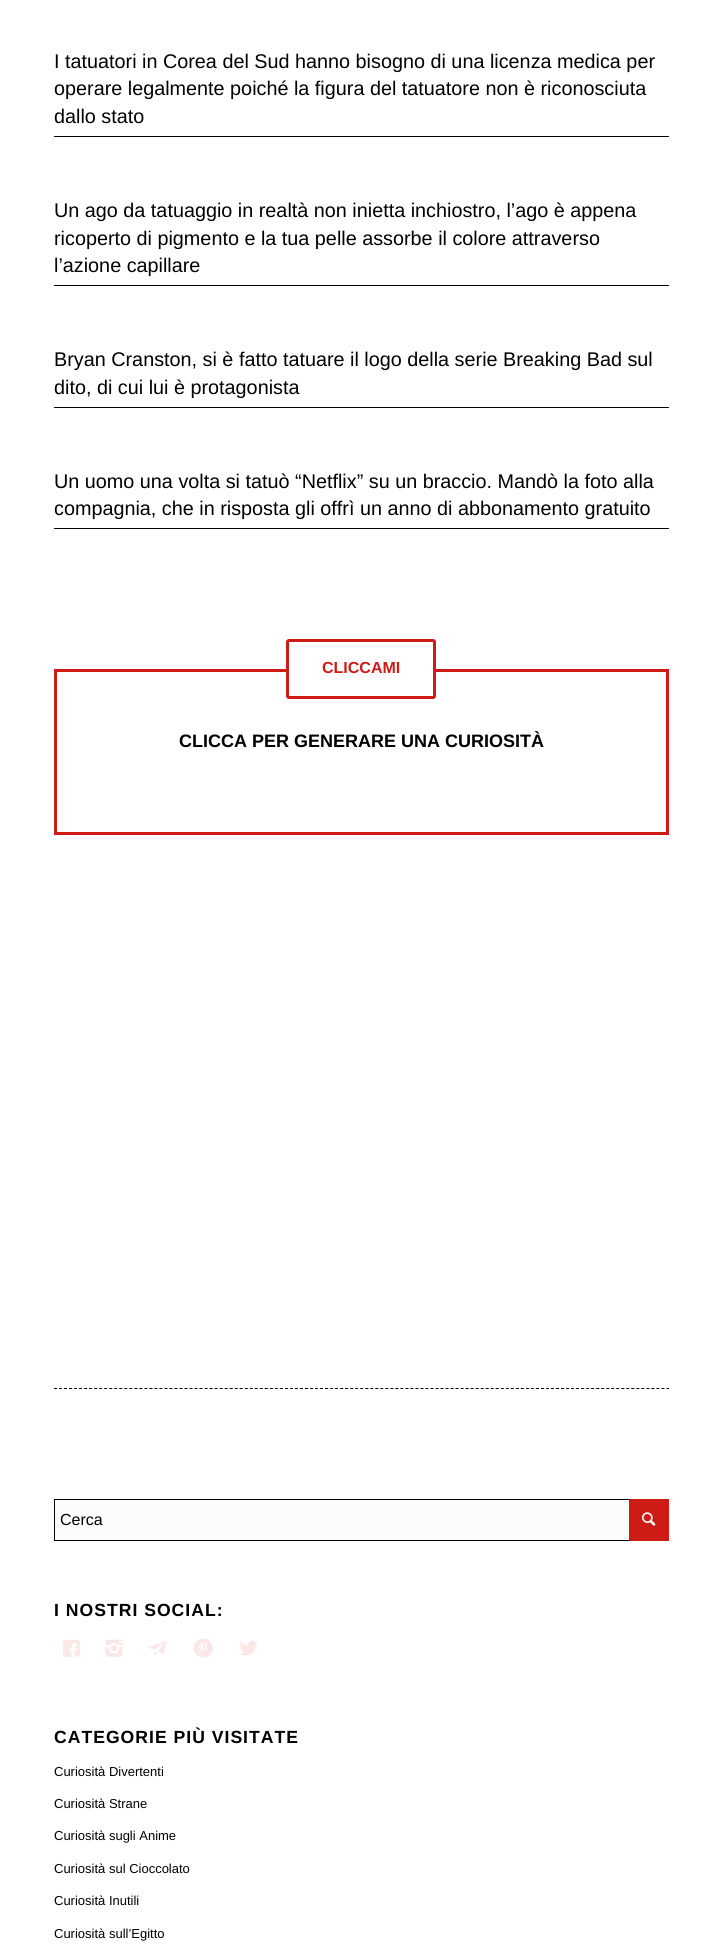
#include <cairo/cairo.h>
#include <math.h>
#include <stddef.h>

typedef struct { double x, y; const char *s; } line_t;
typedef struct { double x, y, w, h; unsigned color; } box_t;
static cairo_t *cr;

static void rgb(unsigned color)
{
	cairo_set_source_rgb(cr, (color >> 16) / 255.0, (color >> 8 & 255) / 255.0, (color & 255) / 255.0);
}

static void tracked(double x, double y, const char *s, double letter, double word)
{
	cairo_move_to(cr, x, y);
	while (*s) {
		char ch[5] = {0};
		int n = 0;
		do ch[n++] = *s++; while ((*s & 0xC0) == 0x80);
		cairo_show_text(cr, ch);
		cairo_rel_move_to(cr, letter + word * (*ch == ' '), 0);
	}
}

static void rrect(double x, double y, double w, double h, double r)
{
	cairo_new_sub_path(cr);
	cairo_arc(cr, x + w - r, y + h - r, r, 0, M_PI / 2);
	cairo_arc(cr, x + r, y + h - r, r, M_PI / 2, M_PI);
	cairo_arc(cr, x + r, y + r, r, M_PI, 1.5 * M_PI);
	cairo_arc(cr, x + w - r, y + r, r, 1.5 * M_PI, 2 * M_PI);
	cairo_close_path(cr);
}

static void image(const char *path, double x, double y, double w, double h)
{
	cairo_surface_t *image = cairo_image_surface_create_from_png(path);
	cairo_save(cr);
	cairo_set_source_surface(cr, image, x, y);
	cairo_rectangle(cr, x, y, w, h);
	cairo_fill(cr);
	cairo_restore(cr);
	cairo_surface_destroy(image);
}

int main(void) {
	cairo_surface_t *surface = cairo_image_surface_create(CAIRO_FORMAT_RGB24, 723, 1944);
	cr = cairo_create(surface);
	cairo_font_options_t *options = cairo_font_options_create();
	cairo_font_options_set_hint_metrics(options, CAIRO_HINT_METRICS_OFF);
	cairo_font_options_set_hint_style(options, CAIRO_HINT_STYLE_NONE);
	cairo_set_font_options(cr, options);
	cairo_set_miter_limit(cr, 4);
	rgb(0xffffff);
	cairo_paint(cr);
	{
		static const box_t items[] = {
			{54, 136, 615, 1, 0x000000},
			{54, 285, 615, 1, 0x000000},
			{54, 407, 615, 1, 0x000000},
			{54, 528, 615, 1, 0x000000},
		};
		for (size_t i = 0; i < sizeof items / sizeof *items; i++) {
			rgb(items[i].color);
			cairo_rectangle(cr, items[i].x, items[i].y, items[i].w, items[i].h);
			cairo_fill(cr);
		}
	}
	cairo_rectangle(cr, 55.5, 670.5, 612, 163);
	rgb(0xcf1b15);
	cairo_set_line_width(cr, 3);
	cairo_stroke(cr);
	rgb(0xffffff);
	rrect(287.5, 640.5, 147, 57, 1.5);
	cairo_fill_preserve(cr);
	rgb(0xcf1b15);
	cairo_stroke(cr);
	cairo_new_path(cr);
	cairo_move_to(cr, 54, 1388.5);
	cairo_line_to(cr, 669, 1388.5);
	rgb(0x000000);
	cairo_set_line_width(cr, 1);
	cairo_set_dash(cr, (double[]){3, 2.02}, 2, 0);
	cairo_stroke(cr);
	rgb(0xfcfcfc);
	cairo_rectangle(cr, 55, 1500, 574, 40);
	cairo_fill(cr);
	cairo_rectangle(cr, 54.5, 1499.5, 614, 41);
	rgb(0x000000);
	cairo_set_dash(cr, NULL, 0, 0);
	cairo_stroke(cr);
	rgb(0xcf1b15);
	cairo_rectangle(cr, 629, 1499, 40, 42);
	cairo_fill(cr);
	image("img/1.png", 642, 1512, 14, 14);
	image("img/2.png", 62, 1639, 18, 18);
	image("img/3.png", 105, 1639, 18, 18);
	image("img/4.png", 148, 1641, 19, 15);
	image("img/5.png", 193, 1638, 20, 20);
	image("img/6.png", 240, 1640, 18, 16);
	cairo_select_font_face(cr, "Liberation Sans", CAIRO_FONT_SLANT_NORMAL, CAIRO_FONT_WEIGHT_NORMAL);
	cairo_set_font_size(cr, 19.8);
	rgb(0x000000);
	{
		static const line_t items[] = {
			{54, 68, "I tatuatori in Corea del Sud hanno bisogno di una licenza medica per"},
			{54, 95, "operare legalmente poiché la figura del tatuatore non è riconosciuta"},
			{54, 123, "dallo stato"},
			{54, 217, "Un ago da tatuaggio in realtà non inietta inchiostro, l’ago è appena"},
			{54, 245, "ricoperto di pigmento e la tua pelle assorbe il colore attraverso"},
			{54, 272, "l’azione capillare"},
			{54, 366, "Bryan Cranston, si è fatto tatuare il logo della serie Breaking Bad sul"},
			{54, 394, "dito, di cui lui è protagonista"},
			{54, 488, "Un uomo una volta si tatuò “Netflix” su un braccio. Mandò la foto alla"},
			{54, 515, "compagnia, che in risposta gli offrì un anno di abbonamento gratuito"},
		};
		for (size_t i = 0; i < sizeof items / sizeof *items; i++) {
			cairo_move_to(cr, items[i].x, items[i].y);
			cairo_show_text(cr, items[i].s);
		}
	}
	cairo_select_font_face(cr, "Liberation Sans", CAIRO_FONT_SLANT_NORMAL, CAIRO_FONT_WEIGHT_BOLD);
	cairo_set_font_size(cr, 16);
	rgb(0xcf1b15);
	cairo_move_to(cr, 322, 673);
	cairo_show_text(cr, "CLICCAMI");
	cairo_set_font_size(cr, 18);
	rgb(0x000000);
	cairo_move_to(cr, 179, 747);
	cairo_show_text(cr, "CLICCA PER GENERARE UNA CURIOSITÀ");
	cairo_select_font_face(cr, "Liberation Sans", CAIRO_FONT_SLANT_NORMAL, CAIRO_FONT_WEIGHT_NORMAL);
	cairo_set_font_size(cr, 16);
	cairo_move_to(cr, 60, 1525);
	cairo_show_text(cr, "Cerca");
	cairo_select_font_face(cr, "Liberation Sans", CAIRO_FONT_SLANT_NORMAL, CAIRO_FONT_WEIGHT_BOLD);
	cairo_set_font_size(cr, 17.6);
	tracked(54, 1616, "I NOSTRI SOCIAL:", 1, 0);
	tracked(54, 1743, "CATEGORIE PIÙ VISITATE", 1, 0);
	cairo_select_font_face(cr, "Liberation Sans", CAIRO_FONT_SLANT_NORMAL, CAIRO_FONT_WEIGHT_NORMAL);
	cairo_set_font_size(cr, 13);
	{
		static const line_t items[] = {
			{54, 1776, "Curiosità Divertenti"},
			{54, 1808, "Curiosità Strane"},
			{54, 1840, "Curiosità sugli Anime"},
			{54, 1873, "Curiosità sul Cioccolato"},
			{54, 1905, "Curiosità Inutili"},
			{54, 1938, "Curiosità sull’Egitto"},
		};
		for (size_t i = 0; i < sizeof items / sizeof *items; i++) {
			cairo_move_to(cr, items[i].x, items[i].y);
			cairo_show_text(cr, items[i].s);
		}
	}
	cairo_surface_write_to_png(surface, "page.png");
	cairo_font_options_destroy(options);
	cairo_destroy(cr);
	cairo_surface_destroy(surface);
	return 0;
}
